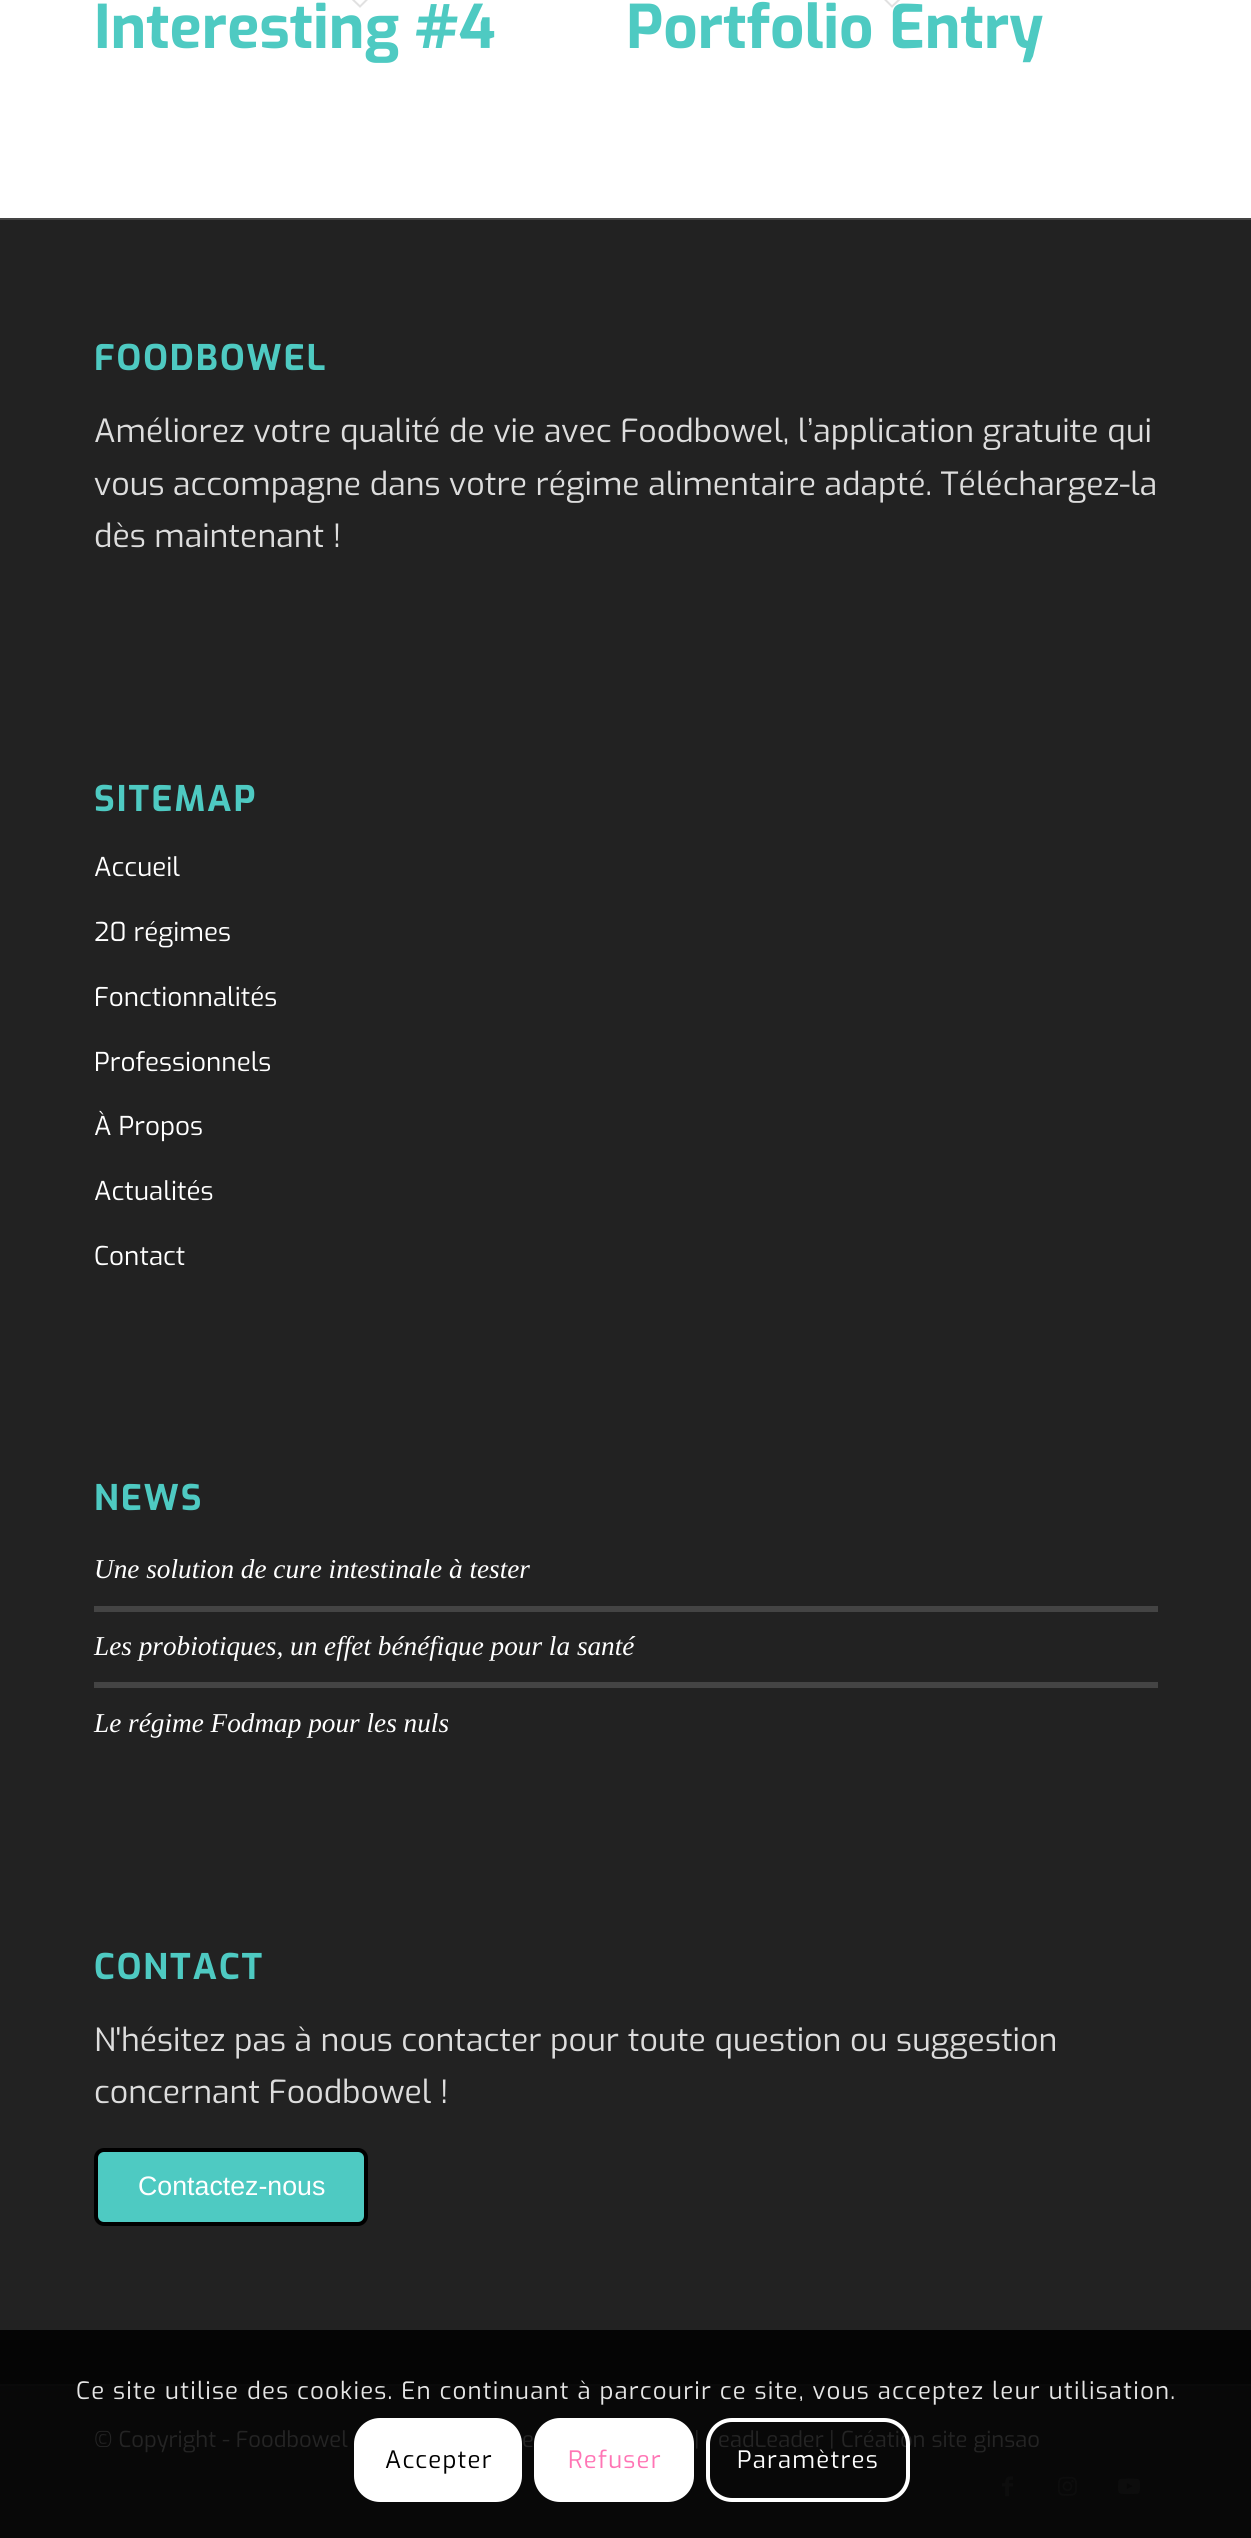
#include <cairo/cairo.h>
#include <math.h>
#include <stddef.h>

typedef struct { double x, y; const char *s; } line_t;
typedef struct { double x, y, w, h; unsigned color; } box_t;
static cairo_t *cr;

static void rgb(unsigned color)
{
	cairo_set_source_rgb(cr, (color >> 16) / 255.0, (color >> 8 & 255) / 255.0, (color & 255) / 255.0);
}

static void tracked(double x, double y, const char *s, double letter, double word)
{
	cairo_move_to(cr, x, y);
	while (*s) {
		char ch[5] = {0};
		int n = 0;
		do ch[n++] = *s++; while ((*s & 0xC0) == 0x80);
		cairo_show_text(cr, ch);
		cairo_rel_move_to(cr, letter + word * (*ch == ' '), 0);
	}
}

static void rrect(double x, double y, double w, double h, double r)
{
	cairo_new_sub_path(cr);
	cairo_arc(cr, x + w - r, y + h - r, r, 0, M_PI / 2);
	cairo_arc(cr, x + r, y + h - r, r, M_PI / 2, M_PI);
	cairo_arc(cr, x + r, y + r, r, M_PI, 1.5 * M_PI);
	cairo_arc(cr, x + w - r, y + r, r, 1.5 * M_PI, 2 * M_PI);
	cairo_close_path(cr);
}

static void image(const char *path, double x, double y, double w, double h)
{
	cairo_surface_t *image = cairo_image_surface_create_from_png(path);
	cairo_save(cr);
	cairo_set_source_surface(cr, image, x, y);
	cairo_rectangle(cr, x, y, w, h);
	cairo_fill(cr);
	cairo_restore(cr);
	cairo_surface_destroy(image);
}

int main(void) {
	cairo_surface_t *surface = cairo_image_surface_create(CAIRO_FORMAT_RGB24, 1251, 2538);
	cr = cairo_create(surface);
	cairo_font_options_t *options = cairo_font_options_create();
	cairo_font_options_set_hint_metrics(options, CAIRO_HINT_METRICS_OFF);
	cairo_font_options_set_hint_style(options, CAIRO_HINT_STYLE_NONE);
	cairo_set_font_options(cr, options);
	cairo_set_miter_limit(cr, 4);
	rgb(0xffffff);
	cairo_paint(cr);
	{
		static const box_t items[] = {
			{0, 220, 1251, 2110, 0x222222},
			{0, 2330, 1251, 54, 0x050505},
			{0, 218, 1251, 2, 0x444444},
			{94, 1606, 1064, 6, 0x444444},
			{94, 1682, 1064, 6, 0x444444},
		};
		for (size_t i = 0; i < sizeof items / sizeof *items; i++) {
			rgb(items[i].color);
			cairo_rectangle(cr, items[i].x, items[i].y, items[i].w, items[i].h);
			cairo_fill(cr);
		}
	}
	rgb(0x4ecac2);
	rrect(96, 2150, 270, 74, 8);
	cairo_fill_preserve(cr);
	rgb(0x000000);
	cairo_set_line_width(cr, 4);
	cairo_stroke(cr);
	rgb(0x080808);
	cairo_rectangle(cr, 0, 2386, 1251, 152);
	cairo_fill(cr);
	rgb(0x0a0a0a);
	cairo_rectangle(cr, 0, 2384, 1251, 2);
	cairo_fill(cr);
	image("img/1.png", 1002, 2476, 11, 21);
	image("img/2.png", 1058, 2476, 19, 20);
	image("img/3.png", 1118, 2478, 22, 16);
	rgb(0xffffff);
	rrect(354, 2418, 168, 84, 26);
	cairo_fill(cr);
	rrect(536, 2420, 156, 80, 24);
	cairo_fill_preserve(cr);
	cairo_stroke(cr);
	cairo_select_font_face(cr, "Exo", CAIRO_FONT_SLANT_NORMAL, CAIRO_FONT_WEIGHT_BOLD);
	cairo_set_font_size(cr, 60);
	rgb(0x4ecac2);
	cairo_move_to(cr, 94, 48);
	cairo_show_text(cr, "Interesting #4");
	cairo_new_path(cr);
	cairo_move_to(cr, 360, -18.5);
	cairo_line_to(cr, 372.5, -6);
	cairo_line_to(cr, 360, 6.5);
	cairo_line_to(cr, 347, -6);
	cairo_close_path(cr);
	rgb(0xe1e1e1);
	cairo_set_line_width(cr, 2);
	cairo_stroke(cr);
	rgb(0x4ecac2);
	cairo_move_to(cr, 626, 48);
	cairo_show_text(cr, "Portfolio Entry");
	cairo_new_path(cr);
	cairo_move_to(cr, 892, -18.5);
	cairo_line_to(cr, 905, -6);
	cairo_line_to(cr, 892, 6.5);
	cairo_line_to(cr, 879.5, -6);
	cairo_close_path(cr);
	rgb(0xe1e1e1);
	cairo_stroke(cr);
	cairo_set_font_size(cr, 35.25);
	rgb(0x4ecac2);
	tracked(94, 370, "FOODBOWEL", 2, 0);
	cairo_select_font_face(cr, "Exo", CAIRO_FONT_SLANT_NORMAL, CAIRO_FONT_WEIGHT_NORMAL);
	cairo_set_font_size(cr, 32);
	rgb(0xdddddd);
	{
		static const line_t items[] = {
			{94, 442, "Améliorez votre qualité de vie avec Foodbowel, l’application gratuite qui"},
			{94, 495, "vous accompagne dans votre régime alimentaire adapté. Téléchargez-la"},
			{94, 547, "dès maintenant !"},
		};
		for (size_t i = 0; i < sizeof items / sizeof *items; i++) {
			cairo_move_to(cr, items[i].x, items[i].y);
			cairo_show_text(cr, items[i].s);
		}
	}
	cairo_select_font_face(cr, "Exo", CAIRO_FONT_SLANT_NORMAL, CAIRO_FONT_WEIGHT_BOLD);
	cairo_set_font_size(cr, 35.25);
	rgb(0x4ecac2);
	tracked(94, 811, "SITEMAP", 2, 0);
	cairo_select_font_face(cr, "Exo", CAIRO_FONT_SLANT_NORMAL, CAIRO_FONT_WEIGHT_NORMAL);
	cairo_set_font_size(cr, 26);
	rgb(0xffffff);
	{
		static const line_t items[] = {
			{94, 876, "Accueil"},
			{94, 941, "20 régimes"},
			{94, 1006, "Fonctionnalités"},
			{94, 1071, "Professionnels"},
			{94, 1135, "À Propos"},
			{94, 1200, "Actualités"},
			{94, 1265, "Contact"},
		};
		for (size_t i = 0; i < sizeof items / sizeof *items; i++) {
			cairo_move_to(cr, items[i].x, items[i].y);
			cairo_show_text(cr, items[i].s);
		}
	}
	cairo_select_font_face(cr, "Exo", CAIRO_FONT_SLANT_NORMAL, CAIRO_FONT_WEIGHT_BOLD);
	cairo_set_font_size(cr, 35.25);
	rgb(0x4ecac2);
	tracked(94, 1510, "NEWS", 2, 0);
	cairo_select_font_face(cr, "Liberation Serif", CAIRO_FONT_SLANT_ITALIC, CAIRO_FONT_WEIGHT_NORMAL);
	cairo_set_font_size(cr, 27.25);
	rgb(0xffffff);
	{
		static const line_t items[] = {
			{94, 1578, "Une solution de cure intestinale à tester"},
			{94, 1655, "Les probiotiques, un effet bénéfique pour la santé"},
			{94, 1732, "Le régime Fodmap pour les nuls"},
		};
		for (size_t i = 0; i < sizeof items / sizeof *items; i++) {
			cairo_move_to(cr, items[i].x, items[i].y);
			cairo_show_text(cr, items[i].s);
		}
	}
	cairo_select_font_face(cr, "Exo", CAIRO_FONT_SLANT_NORMAL, CAIRO_FONT_WEIGHT_BOLD);
	cairo_set_font_size(cr, 35.25);
	rgb(0x4ecac2);
	tracked(94, 1979, "CONTACT", 2, 0);
	cairo_select_font_face(cr, "Exo", CAIRO_FONT_SLANT_NORMAL, CAIRO_FONT_WEIGHT_NORMAL);
	cairo_set_font_size(cr, 32);
	rgb(0xdddddd);
	cairo_move_to(cr, 94, 2051);
	cairo_show_text(cr, "N'hésitez pas à nous contacter pour toute question ou suggestion");
	cairo_move_to(cr, 94, 2103);
	cairo_show_text(cr, "concernant Foodbowel !");
	cairo_select_font_face(cr, "Liberation Sans", CAIRO_FONT_SLANT_NORMAL, CAIRO_FONT_WEIGHT_NORMAL);
	cairo_set_font_size(cr, 26.75);
	rgb(0xffffff);
	cairo_move_to(cr, 138, 2195);
	cairo_show_text(cr, "Contactez-nous");
	cairo_select_font_face(cr, "Exo", CAIRO_FONT_SLANT_NORMAL, CAIRO_FONT_WEIGHT_NORMAL);
	cairo_set_font_size(cr, 22);
	rgb(0x242424);
	{
		static const line_t items[] = {
			{94, 2447, "© Copyright - Foodbowel"},
			{522, 2447, "e"},
			{694, 2447, "|"},
			{718, 2447, "eadLeader"},
			{829, 2447, "|"},
			{841, 2447, "Création site ginsao"},
		};
		for (size_t i = 0; i < sizeof items / sizeof *items; i++) {
			cairo_move_to(cr, items[i].x, items[i].y);
			cairo_show_text(cr, items[i].s);
		}
	}
	cairo_set_font_size(cr, 24);
	rgb(0xe6e6e6);
	tracked(76, 2399, "Ce site utilise des cookies. En continuant à parcourir ce site, vous acceptez leur utilisation.", 1.2, 0);
	rgb(0x000000);
	tracked(385, 2468, "Accepter", 1.2, 0);
	rgb(0xff75b5);
	tracked(568, 2468, "Refuser", 1.2, 0);
	rrect(708, 2420, 200, 80, 24);
	rgb(0xffffff);
	cairo_set_line_width(cr, 4);
	cairo_stroke(cr);
	tracked(737, 2468, "Paramètres", 1.2, 0);
	cairo_surface_write_to_png(surface, "page.png");
	cairo_font_options_destroy(options);
	cairo_destroy(cr);
	cairo_surface_destroy(surface);
	return 0;
}
